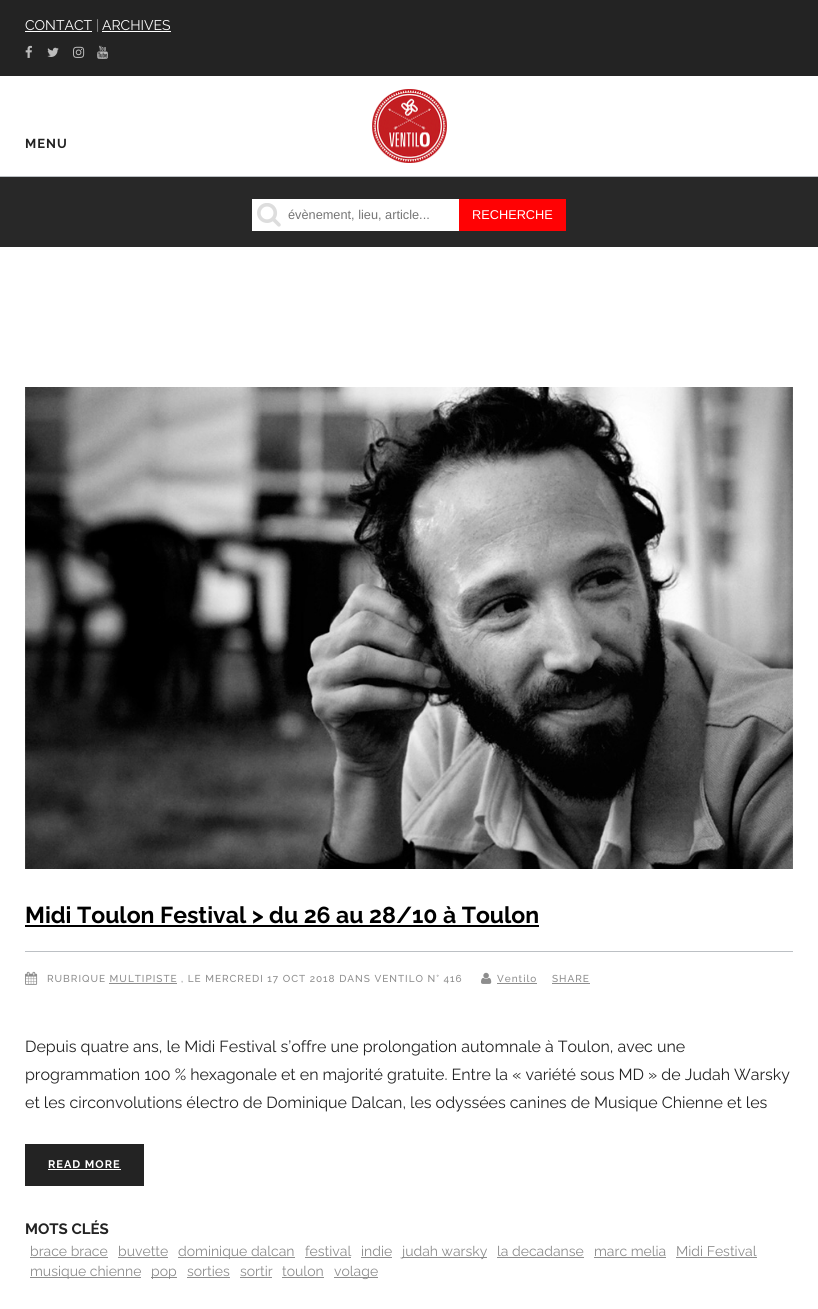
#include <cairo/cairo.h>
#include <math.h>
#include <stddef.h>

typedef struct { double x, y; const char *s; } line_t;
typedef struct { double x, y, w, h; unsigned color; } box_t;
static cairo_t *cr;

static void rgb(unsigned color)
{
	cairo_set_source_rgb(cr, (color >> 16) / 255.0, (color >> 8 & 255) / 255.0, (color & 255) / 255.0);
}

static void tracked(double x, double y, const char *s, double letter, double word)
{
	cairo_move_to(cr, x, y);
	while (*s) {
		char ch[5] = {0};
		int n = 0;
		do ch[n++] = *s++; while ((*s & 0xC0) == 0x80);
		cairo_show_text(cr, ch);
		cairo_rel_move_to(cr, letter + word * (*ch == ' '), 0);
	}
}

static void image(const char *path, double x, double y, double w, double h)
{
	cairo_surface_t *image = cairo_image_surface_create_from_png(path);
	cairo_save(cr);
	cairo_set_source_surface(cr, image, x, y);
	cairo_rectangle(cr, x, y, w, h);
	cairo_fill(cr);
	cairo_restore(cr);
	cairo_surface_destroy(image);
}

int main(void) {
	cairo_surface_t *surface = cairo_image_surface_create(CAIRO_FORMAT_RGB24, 818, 1309);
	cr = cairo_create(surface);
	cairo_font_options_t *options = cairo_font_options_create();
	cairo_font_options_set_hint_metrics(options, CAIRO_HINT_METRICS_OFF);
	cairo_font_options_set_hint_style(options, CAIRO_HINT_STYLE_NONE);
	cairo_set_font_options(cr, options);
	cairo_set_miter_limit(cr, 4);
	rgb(0xffffff);
	cairo_paint(cr);
	{
		static const box_t items[] = {
			{0, 0, 818, 76, 0x232323},
			{25, 31, 67, 1, 0xffffff},
			{102, 31, 69, 1, 0xffffff},
		};
		for (size_t i = 0; i < sizeof items / sizeof *items; i++) {
			rgb(items[i].color);
			cairo_rectangle(cr, items[i].x, items[i].y, items[i].w, items[i].h);
			cairo_fill(cr);
		}
	}
	image("img/1.png", 25, 45, 7, 13);
	image("img/2.png", 47, 47, 12, 10);
	image("img/3.png", 73, 46, 12, 12);
	image("img/4.png", 97, 45, 11, 14);
	rgb(0xbcc0c4);
	cairo_rectangle(cr, 0, 176, 818, 1);
	cairo_fill(cr);
	image("img/5.png", 372, 89, 75, 74);
	rgb(0x282828);
	cairo_rectangle(cr, 0, 177, 818, 70);
	cairo_fill(cr);
	rgb(0xffffff);
	cairo_rectangle(cr, 252, 199, 207, 32);
	cairo_fill(cr);
	image("img/6.png", 257, 203, 24, 24);
	rgb(0xff0204);
	cairo_rectangle(cr, 459, 199, 107, 32);
	cairo_fill(cr);
	image("img/7.png", 25, 387, 768, 482);
	rgb(0x000000);
	cairo_rectangle(cr, 25, 925, 514, 2);
	cairo_fill(cr);
	rgb(0xbcc0c4);
	cairo_rectangle(cr, 25, 951, 768, 1);
	cairo_fill(cr);
	image("img/8.png", 25, 971, 13, 14);
	rgb(0x8d8d8d);
	cairo_rectangle(cr, 109, 983, 68, 1);
	cairo_fill(cr);
	image("img/9.png", 481, 972, 11, 12);
	{
		static const box_t items[] = {
			{497, 983, 40, 1, 0x8d8d8d},
			{552, 983, 38, 1, 0x8d8d8d},
			{25, 1144, 119, 42, 0x232323},
			{48, 1169, 73, 1, 0xffffff},
			{30, 1257, 78, 1, 0x8d8d8d},
			{118, 1257, 50, 1, 0x8d8d8d},
			{178, 1257, 117, 1, 0x8d8d8d},
			{305, 1257, 46, 1, 0x8d8d8d},
			{361, 1257, 31, 1, 0x8d8d8d},
			{402, 1257, 85, 1, 0x8d8d8d},
			{497, 1257, 87, 1, 0x8d8d8d},
			{594, 1257, 72, 1, 0x8d8d8d},
			{676, 1257, 81, 1, 0x8d8d8d},
			{30, 1277, 111, 1, 0x8d8d8d},
			{151, 1277, 26, 1, 0x8d8d8d},
			{187, 1277, 43, 1, 0x8d8d8d},
			{240, 1277, 32, 1, 0x8d8d8d},
			{282, 1277, 42, 1, 0x8d8d8d},
			{334, 1277, 44, 1, 0x8d8d8d},
		};
		for (size_t i = 0; i < sizeof items / sizeof *items; i++) {
			rgb(items[i].color);
			cairo_rectangle(cr, items[i].x, items[i].y, items[i].w, items[i].h);
			cairo_fill(cr);
		}
	}
	cairo_select_font_face(cr, "Raleway", CAIRO_FONT_SLANT_NORMAL, CAIRO_FONT_WEIGHT_NORMAL);
	cairo_set_font_size(cr, 14);
	rgb(0xffffff);
	cairo_move_to(cr, 25, 30);
	cairo_show_text(cr, "CONTACT");
	rgb(0x999999);
	cairo_move_to(cr, 96, 30);
	cairo_show_text(cr, "|");
	rgb(0xffffff);
	cairo_move_to(cr, 102, 30);
	cairo_show_text(cr, "ARCHIVES");
	cairo_select_font_face(cr, "Raleway", CAIRO_FONT_SLANT_NORMAL, CAIRO_FONT_WEIGHT_BOLD);
	cairo_set_font_size(cr, 13);
	rgb(0x232323);
	tracked(25, 148, "MENU", 1, 0);
	cairo_select_font_face(cr, "Liberation Sans", CAIRO_FONT_SLANT_NORMAL, CAIRO_FONT_WEIGHT_NORMAL);
	cairo_set_font_size(cr, 12.75);
	rgb(0x757575);
	cairo_move_to(cr, 288, 219);
	cairo_show_text(cr, "évènement, lieu, article...");
	rgb(0xffffff);
	cairo_move_to(cr, 472, 219);
	cairo_show_text(cr, "RECHERCHE");
	cairo_select_font_face(cr, "Raleway", CAIRO_FONT_SLANT_NORMAL, CAIRO_FONT_WEIGHT_BOLD);
	cairo_set_font_size(cr, 23);
	rgb(0x000000);
	cairo_move_to(cr, 25, 923);
	cairo_show_text(cr, "Midi Toulon Festival > du 26 au 28/10 à Toulon");
	cairo_select_font_face(cr, "Raleway Medium", CAIRO_FONT_SLANT_NORMAL, CAIRO_FONT_WEIGHT_NORMAL);
	cairo_set_font_size(cr, 10);
	rgb(0x8d8d8d);
	{
		static const line_t items[] = {
			{47, 982, "RUBRIQUE MULTIPISTE , LE MERCREDI 17 OCT 2018 DANS VENTILO N° 416"},
			{497, 982, "Ventilo"},
			{552, 982, "SHARE"},
		};
		for (size_t i = 0; i < sizeof items / sizeof *items; i++) {
			tracked(items[i].x, items[i].y, items[i].s, 1, 0);
		}
	}
	cairo_select_font_face(cr, "Raleway", CAIRO_FONT_SLANT_NORMAL, CAIRO_FONT_WEIGHT_NORMAL);
	cairo_set_font_size(cr, 16);
	rgb(0x232323);
	{
		static const line_t items[] = {
			{25, 1052, "Depuis quatre ans, le Midi Festival s’offre une prolongation automnale à Toulon, avec une"},
			{25, 1080, "programmation 100 % hexagonale et en majorité gratuite. Entre la « variété sous MD » de Judah Warsky"},
			{25, 1108, "et les circonvolutions électro de Dominique Dalcan, les odyssées canines de Musique Chienne et les"},
		};
		for (size_t i = 0; i < sizeof items / sizeof *items; i++) {
			cairo_move_to(cr, items[i].x, items[i].y);
			cairo_show_text(cr, items[i].s);
		}
	}
	cairo_select_font_face(cr, "Raleway", CAIRO_FONT_SLANT_NORMAL, CAIRO_FONT_WEIGHT_BOLD);
	cairo_set_font_size(cr, 11);
	rgb(0xffffff);
	tracked(48, 1168, "READ MORE", 1, 0);
	cairo_set_font_size(cr, 15);
	rgb(0x232323);
	cairo_move_to(cr, 25, 1234);
	cairo_show_text(cr, "MOTS CLÉS");
	cairo_select_font_face(cr, "Raleway", CAIRO_FONT_SLANT_NORMAL, CAIRO_FONT_WEIGHT_NORMAL);
	cairo_set_font_size(cr, 14);
	rgb(0x8d8d8d);
	{
		static const line_t items[] = {
			{30, 1256, "brace brace"},
			{118, 1256, "buvette"},
			{178, 1256, "dominique dalcan"},
			{305, 1256, "festival"},
			{361, 1256, "indie"},
			{402, 1256, "judah warsky"},
			{497, 1256, "la decadanse"},
			{594, 1256, "marc melia"},
			{676, 1256, "Midi Festival"},
			{30, 1276, "musique chienne"},
			{151, 1276, "pop"},
			{187, 1276, "sorties"},
			{240, 1276, "sortir"},
			{282, 1276, "toulon"},
			{334, 1276, "volage"},
		};
		for (size_t i = 0; i < sizeof items / sizeof *items; i++) {
			cairo_move_to(cr, items[i].x, items[i].y);
			cairo_show_text(cr, items[i].s);
		}
	}
	cairo_surface_write_to_png(surface, "page.png");
	cairo_font_options_destroy(options);
	cairo_destroy(cr);
	cairo_surface_destroy(surface);
	return 0;
}
